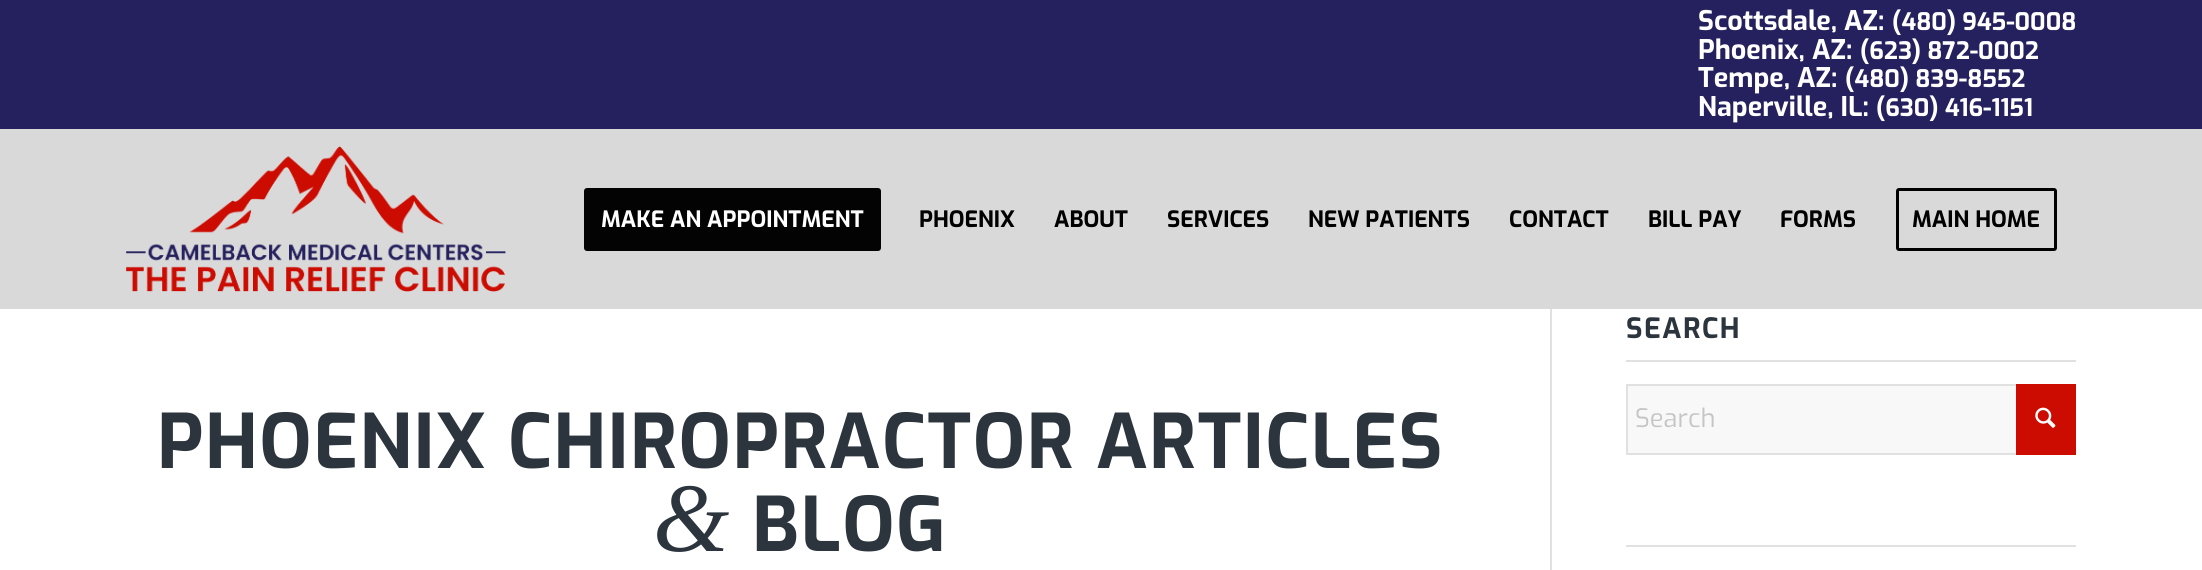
#include <cairo/cairo.h>
#include <math.h>
#include <stddef.h>

typedef struct { double x, y; const char *s; } line_t;
static cairo_t *cr;

static void rgb(unsigned color)
{
	cairo_set_source_rgb(cr, (color >> 16) / 255.0, (color >> 8 & 255) / 255.0, (color & 255) / 255.0);
}

static void tracked(double x, double y, const char *s, double letter, double word)
{
	cairo_move_to(cr, x, y);
	while (*s) {
		char ch[5] = {0};
		int n = 0;
		do ch[n++] = *s++; while ((*s & 0xC0) == 0x80);
		cairo_show_text(cr, ch);
		cairo_rel_move_to(cr, letter + word * (*ch == ' '), 0);
	}
}

static void rrect(double x, double y, double w, double h, double r)
{
	cairo_new_sub_path(cr);
	cairo_arc(cr, x + w - r, y + h - r, r, 0, M_PI / 2);
	cairo_arc(cr, x + r, y + h - r, r, M_PI / 2, M_PI);
	cairo_arc(cr, x + r, y + r, r, M_PI, 1.5 * M_PI);
	cairo_arc(cr, x + w - r, y + r, r, 1.5 * M_PI, 2 * M_PI);
	cairo_close_path(cr);
}

static void image(const char *path, double x, double y, double w, double h)
{
	cairo_surface_t *image = cairo_image_surface_create_from_png(path);
	cairo_save(cr);
	cairo_set_source_surface(cr, image, x, y);
	cairo_rectangle(cr, x, y, w, h);
	cairo_fill(cr);
	cairo_restore(cr);
	cairo_surface_destroy(image);
}

int main(void) {
	cairo_surface_t *surface = cairo_image_surface_create(CAIRO_FORMAT_RGB24, 2202, 570);
	cr = cairo_create(surface);
	cairo_font_options_t *options = cairo_font_options_create();
	cairo_font_options_set_hint_metrics(options, CAIRO_HINT_METRICS_OFF);
	cairo_font_options_set_hint_style(options, CAIRO_HINT_STYLE_NONE);
	cairo_set_font_options(cr, options);
	cairo_set_miter_limit(cr, 4);
	rgb(0xffffff);
	cairo_paint(cr);
	rgb(0x25215e);
	cairo_rectangle(cr, 0, 0, 2202, 129);
	cairo_fill(cr);
	rgb(0xd9d9d9);
	cairo_rectangle(cr, 0, 129, 2202, 180);
	cairo_fill(cr);
	image("img/1.png", 126, 146, 380, 146);
	rgb(0x030303);
	rrect(585.5, 189.5, 294, 60, 1.5);
	cairo_fill_preserve(cr);
	cairo_set_line_width(cr, 3);
	cairo_stroke(cr);
	rrect(1897.5, 189.5, 158, 60, 1.5);
	rgb(0x000000);
	cairo_stroke(cr);
	rgb(0xe1e1e1);
	cairo_rectangle(cr, 1626, 360, 450, 2);
	cairo_fill(cr);
	rgb(0xf8f8f8);
	cairo_rectangle(cr, 1628, 386, 388, 67);
	cairo_fill(cr);
	cairo_rectangle(cr, 1627, 385, 448, 69);
	rgb(0xe1e1e1);
	cairo_set_line_width(cr, 2);
	cairo_stroke(cr);
	rgb(0xcc0b01);
	cairo_rectangle(cr, 2016, 384, 60, 71);
	cairo_fill(cr);
	image("img/2.png", 2035, 407, 21, 21);
	rgb(0xe1e1e1);
	cairo_rectangle(cr, 1626, 545, 450, 2);
	cairo_fill(cr);
	cairo_rectangle(cr, 1550, 309, 2, 261);
	cairo_fill(cr);
	cairo_select_font_face(cr, "Exo", CAIRO_FONT_SLANT_NORMAL, CAIRO_FONT_WEIGHT_BOLD);
	cairo_set_font_size(cr, 27);
	rgb(0xffffff);
	cairo_move_to(cr, 1698, 30);
	cairo_show_text(cr, "Scottsdale, AZ:");
	cairo_set_font_size(cr, 24);
	cairo_move_to(cr, 1892, 30);
	cairo_show_text(cr, "(480) 945-0008");
	cairo_set_font_size(cr, 27);
	cairo_move_to(cr, 1698, 59);
	cairo_show_text(cr, "Phoenix, AZ:");
	cairo_set_font_size(cr, 24);
	cairo_move_to(cr, 1860, 59);
	cairo_show_text(cr, "(623) 872-0002");
	cairo_set_font_size(cr, 27);
	cairo_move_to(cr, 1698, 87);
	cairo_show_text(cr, "Tempe, AZ:");
	cairo_set_font_size(cr, 24);
	cairo_move_to(cr, 1845, 87);
	cairo_show_text(cr, "(480) 839-8552");
	cairo_set_font_size(cr, 27);
	cairo_move_to(cr, 1698, 116);
	cairo_show_text(cr, "Naperville, IL:");
	cairo_set_font_size(cr, 24);
	cairo_move_to(cr, 1876, 116);
	cairo_show_text(cr, "(630) 416-1151");
	cairo_set_font_size(cr, 22.5);
	cairo_move_to(cr, 601, 227);
	cairo_show_text(cr, "MAKE AN APPOINTMENT");
	rgb(0x000000);
	{
		static const line_t items[] = {
			{919, 227, "PHOENIX"},
			{1054, 227, "ABOUT"},
			{1167, 227, "SERVICES"},
			{1308, 227, "NEW PATIENTS"},
			{1509, 227, "CONTACT"},
			{1648, 227, "BILL PAY"},
			{1780, 227, "FORMS"},
			{1912, 227, "MAIN HOME"},
		};
		for (size_t i = 0; i < sizeof items / sizeof *items; i++) {
			cairo_move_to(cr, items[i].x, items[i].y);
			cairo_show_text(cr, items[i].s);
		}
	}
	cairo_set_font_size(cr, 28);
	rgb(0x2c353d);
	tracked(1626, 338, "SEARCH", 1.5, 0);
	cairo_select_font_face(cr, "Exo", CAIRO_FONT_SLANT_NORMAL, CAIRO_FONT_WEIGHT_NORMAL);
	cairo_set_font_size(cr, 25.5);
	rgb(0xc5c5c5);
	cairo_move_to(cr, 1635, 427);
	cairo_show_text(cr, "Search");
	cairo_select_font_face(cr, "Exo", CAIRO_FONT_SLANT_NORMAL, CAIRO_FONT_WEIGHT_BOLD);
	cairo_set_font_size(cr, 75);
	rgb(0x2c353d);
	tracked(157, 468, "PHOENIX CHIROPRACTOR ARTICLES", 1.5, 0);
	cairo_select_font_face(cr, "Liberation Serif", CAIRO_FONT_SLANT_ITALIC, CAIRO_FONT_WEIGHT_NORMAL);
	cairo_set_font_size(cr, 98);
	tracked(653, 551, "&", 1.5, 0);
	cairo_select_font_face(cr, "Exo", CAIRO_FONT_SLANT_NORMAL, CAIRO_FONT_WEIGHT_BOLD);
	cairo_set_font_size(cr, 75);
	tracked(752, 551, "BLOG", 1.5, 0);
	cairo_surface_write_to_png(surface, "page.png");
	cairo_font_options_destroy(options);
	cairo_destroy(cr);
	cairo_surface_destroy(surface);
	return 0;
}
